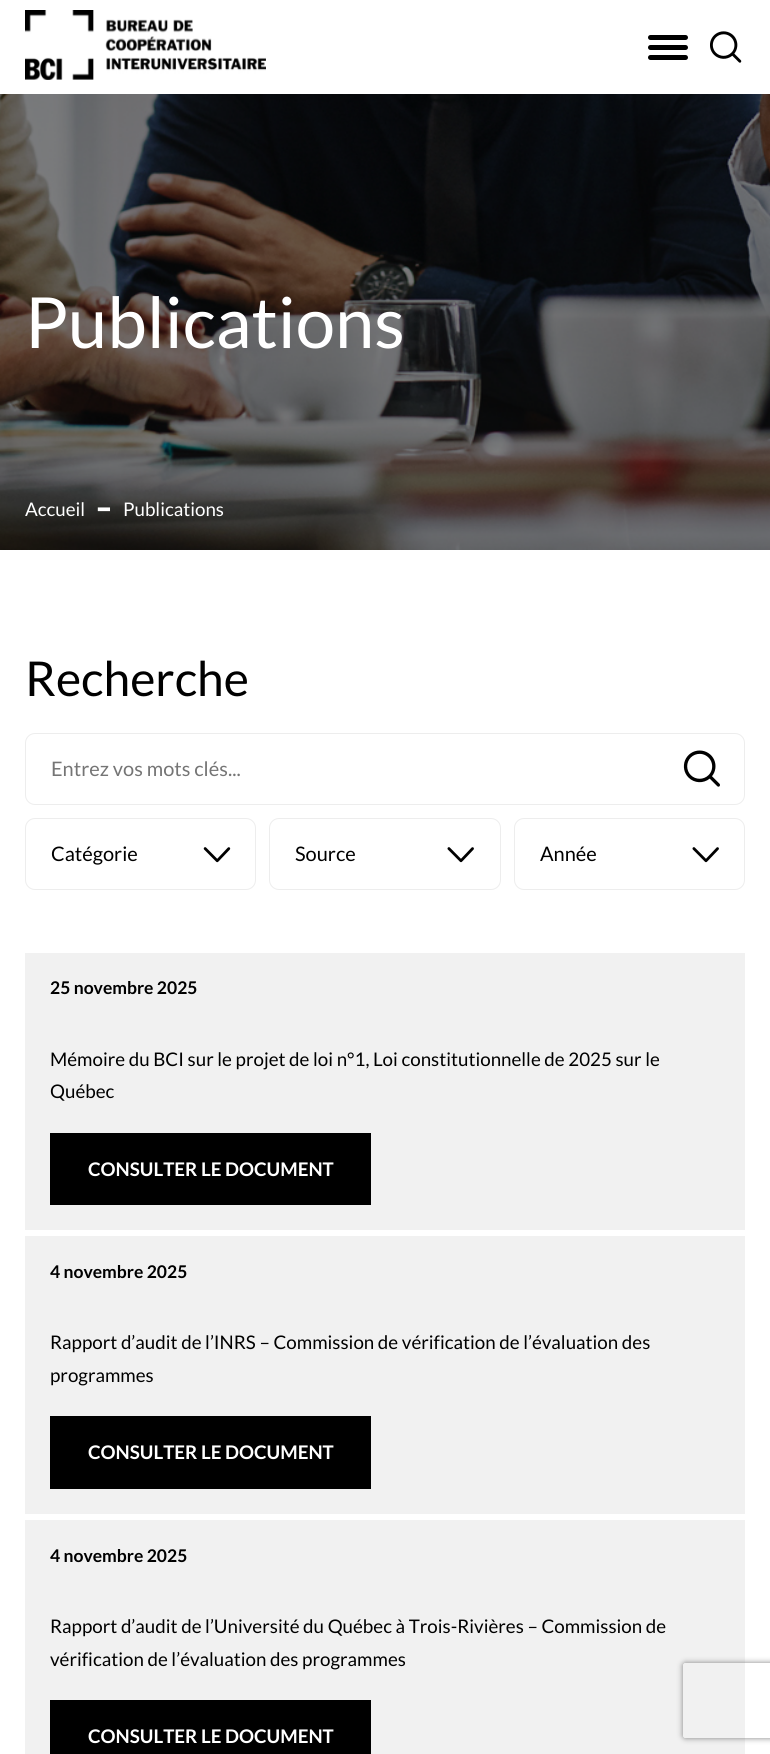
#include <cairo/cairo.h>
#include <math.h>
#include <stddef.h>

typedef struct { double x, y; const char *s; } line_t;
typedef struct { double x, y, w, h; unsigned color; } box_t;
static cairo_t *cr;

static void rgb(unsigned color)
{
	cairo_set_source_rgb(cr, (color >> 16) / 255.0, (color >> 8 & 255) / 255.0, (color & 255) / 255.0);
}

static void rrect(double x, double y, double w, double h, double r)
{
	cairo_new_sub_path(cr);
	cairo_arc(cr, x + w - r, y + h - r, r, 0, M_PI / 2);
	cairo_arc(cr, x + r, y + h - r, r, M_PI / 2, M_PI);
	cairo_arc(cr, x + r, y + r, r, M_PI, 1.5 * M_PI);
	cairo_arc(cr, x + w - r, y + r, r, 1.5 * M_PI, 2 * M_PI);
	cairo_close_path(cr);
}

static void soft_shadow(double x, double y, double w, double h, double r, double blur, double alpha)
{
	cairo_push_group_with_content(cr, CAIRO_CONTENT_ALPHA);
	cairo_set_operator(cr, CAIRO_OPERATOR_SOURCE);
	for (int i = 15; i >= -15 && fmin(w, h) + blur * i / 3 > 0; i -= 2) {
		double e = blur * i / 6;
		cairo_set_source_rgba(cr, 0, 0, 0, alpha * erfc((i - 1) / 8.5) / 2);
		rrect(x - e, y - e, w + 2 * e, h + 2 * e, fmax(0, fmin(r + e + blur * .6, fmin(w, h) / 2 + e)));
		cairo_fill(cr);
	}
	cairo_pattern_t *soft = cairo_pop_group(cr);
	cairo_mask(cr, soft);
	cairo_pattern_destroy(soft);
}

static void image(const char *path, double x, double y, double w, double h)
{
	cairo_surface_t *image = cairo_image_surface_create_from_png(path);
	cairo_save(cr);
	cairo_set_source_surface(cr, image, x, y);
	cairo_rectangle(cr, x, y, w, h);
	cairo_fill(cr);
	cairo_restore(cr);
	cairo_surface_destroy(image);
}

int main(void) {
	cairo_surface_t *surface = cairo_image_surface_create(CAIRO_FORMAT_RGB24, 770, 1754);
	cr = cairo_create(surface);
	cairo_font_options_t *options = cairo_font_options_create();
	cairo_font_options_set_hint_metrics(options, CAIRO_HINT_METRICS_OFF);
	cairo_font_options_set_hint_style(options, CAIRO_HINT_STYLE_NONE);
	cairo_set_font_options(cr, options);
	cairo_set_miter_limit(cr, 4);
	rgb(0xffffff);
	cairo_paint(cr);
	image("img/1.png", 25, 10, 241, 70);
	rgb(0x000000);
	rrect(648, 45, 40, 5, 2.5);
	cairo_fill(cr);
	rrect(648, 35, 40, 5, 2.5);
	cairo_fill(cr);
	rrect(648, 55, 40, 5, 2.5);
	cairo_fill(cr);
	image("img/2.png", 710, 31, 32, 32);
	image("img/3.png", 0, 94, 770, 456);
	rrect(25.5, 733.5, 719, 71, 9.5);
	rgb(0xededed);
	cairo_set_line_width(cr, 1);
	cairo_stroke(cr);
	image("img/4.png", 683, 750, 37, 37);
	rrect(25.5, 818.5, 230, 71, 9.5);
	cairo_stroke(cr);
	image("img/5.png", 203, 847, 28, 16);
	rrect(269.5, 818.5, 231, 71, 9.5);
	cairo_stroke(cr);
	image("img/6.png", 447, 847, 27, 16);
	rrect(514.5, 818.5, 230, 71, 9.5);
	cairo_stroke(cr);
	image("img/6.png", 692, 847, 27, 16);
	{
		static const box_t items[] = {
			{25, 953, 720, 277, 0xf1f1f1},
			{50, 1133, 321, 72, 0x000000},
			{25, 1236, 720, 278, 0xf1f1f1},
			{50, 1416, 321, 73, 0x000000},
			{25, 1520, 720, 234, 0xf1f1f1},
			{50, 1700, 321, 54, 0x000000},
		};
		for (size_t i = 0; i < sizeof items / sizeof *items; i++) {
			rgb(items[i].color);
			cairo_rectangle(cr, items[i].x, items[i].y, items[i].w, items[i].h);
			cairo_fill(cr);
		}
	}
	cairo_save(cr);
	cairo_set_fill_rule(cr, CAIRO_FILL_RULE_EVEN_ODD);
	cairo_new_path(cr);
	cairo_move_to(cr, 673, 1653);
	cairo_line_to(cr, 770, 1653);
	cairo_line_to(cr, 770, 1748);
	cairo_line_to(cr, 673, 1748);
	cairo_close_path(cr);
	cairo_move_to(cr, 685.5, 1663);
	cairo_line_to(cr, 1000.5, 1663);
	cairo_curve_to(cr, 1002, 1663, 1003, 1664, 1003, 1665.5);
	cairo_line_to(cr, 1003, 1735.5);
	cairo_curve_to(cr, 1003, 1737, 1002, 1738, 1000.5, 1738);
	cairo_line_to(cr, 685.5, 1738);
	cairo_curve_to(cr, 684, 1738, 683, 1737, 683, 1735.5);
	cairo_line_to(cr, 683, 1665.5);
	cairo_curve_to(cr, 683, 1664, 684, 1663, 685.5, 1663);
	cairo_close_path(cr);
	cairo_clip(cr);
	rgb(0x808080);
	soft_shadow(683, 1663, 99, 75, 2.5, 3, 1);
	cairo_restore(cr);
	cairo_select_font_face(cr, "Lato", CAIRO_FONT_SLANT_NORMAL, CAIRO_FONT_WEIGHT_NORMAL);
	cairo_set_font_size(cr, 70.5);
	rgb(0xffffff);
	cairo_move_to(cr, 25, 348);
	cairo_show_text(cr, "Publications");
	cairo_set_font_size(cr, 18.75);
	cairo_move_to(cr, 25, 516);
	cairo_show_text(cr, "Accueil");
	cairo_select_font_face(cr, "DejaVu Sans", CAIRO_FONT_SLANT_NORMAL, CAIRO_FONT_WEIGHT_BOLD);
	cairo_move_to(cr, 98, 516);
	cairo_show_text(cr, "━");
	cairo_select_font_face(cr, "Lato", CAIRO_FONT_SLANT_NORMAL, CAIRO_FONT_WEIGHT_NORMAL);
	cairo_move_to(cr, 123, 516);
	cairo_show_text(cr, "Publications");
	cairo_set_font_size(cr, 48);
	rgb(0x000000);
	cairo_move_to(cr, 25, 696);
	cairo_show_text(cr, "Recherche");
	cairo_set_font_size(cr, 20);
	rgb(0x757575);
	cairo_move_to(cr, 51, 776);
	cairo_show_text(cr, "Entrez vos mots clés...");
	rgb(0x000000);
	{
		static const line_t items[] = {
			{51, 861, "Catégorie"},
			{295, 861, "Source"},
			{540, 861, "Année"},
		};
		for (size_t i = 0; i < sizeof items / sizeof *items; i++) {
			cairo_move_to(cr, items[i].x, items[i].y);
			cairo_show_text(cr, items[i].s);
		}
	}
	cairo_select_font_face(cr, "Lato", CAIRO_FONT_SLANT_NORMAL, CAIRO_FONT_WEIGHT_BOLD);
	cairo_set_font_size(cr, 17.5);
	cairo_move_to(cr, 50, 994);
	cairo_show_text(cr, "25 novembre 2025");
	cairo_select_font_face(cr, "Lato", CAIRO_FONT_SLANT_NORMAL, CAIRO_FONT_WEIGHT_NORMAL);
	cairo_set_font_size(cr, 18.75);
	cairo_move_to(cr, 50, 1066);
	cairo_show_text(cr, "Mémoire du BCI sur le projet de loi n°1, Loi constitutionnelle de 2025 sur le");
	cairo_move_to(cr, 50, 1098);
	cairo_show_text(cr, "Québec");
	cairo_select_font_face(cr, "Lato", CAIRO_FONT_SLANT_NORMAL, CAIRO_FONT_WEIGHT_BOLD);
	rgb(0xffffff);
	cairo_move_to(cr, 88, 1176);
	cairo_show_text(cr, "CONSULTER LE DOCUMENT");
	cairo_set_font_size(cr, 17.5);
	rgb(0x000000);
	cairo_move_to(cr, 50, 1278);
	cairo_show_text(cr, "4 novembre 2025");
	cairo_select_font_face(cr, "Lato", CAIRO_FONT_SLANT_NORMAL, CAIRO_FONT_WEIGHT_NORMAL);
	cairo_set_font_size(cr, 18.75);
	cairo_move_to(cr, 50, 1349);
	cairo_show_text(cr, "Rapport d’audit de l’INRS – Commission de vérification de l’évaluation des");
	cairo_move_to(cr, 50, 1382);
	cairo_show_text(cr, "programmes");
	cairo_select_font_face(cr, "Lato", CAIRO_FONT_SLANT_NORMAL, CAIRO_FONT_WEIGHT_BOLD);
	rgb(0xffffff);
	cairo_move_to(cr, 88, 1459);
	cairo_show_text(cr, "CONSULTER LE DOCUMENT");
	cairo_set_font_size(cr, 17.5);
	rgb(0x000000);
	cairo_move_to(cr, 50, 1562);
	cairo_show_text(cr, "4 novembre 2025");
	cairo_select_font_face(cr, "Lato", CAIRO_FONT_SLANT_NORMAL, CAIRO_FONT_WEIGHT_NORMAL);
	cairo_set_font_size(cr, 18.75);
	cairo_move_to(cr, 50, 1633);
	cairo_show_text(cr, "Rapport d’audit de l’Université du Québec à Trois-Rivières – Commission de");
	cairo_move_to(cr, 50, 1666);
	cairo_show_text(cr, "vérification de l’évaluation des programmes");
	cairo_select_font_face(cr, "Lato", CAIRO_FONT_SLANT_NORMAL, CAIRO_FONT_WEIGHT_BOLD);
	rgb(0xffffff);
	cairo_move_to(cr, 88, 1743);
	cairo_show_text(cr, "CONSULTER LE DOCUMENT");
	cairo_surface_write_to_png(surface, "page.png");
	cairo_font_options_destroy(options);
	cairo_destroy(cr);
	cairo_surface_destroy(surface);
	return 0;
}
